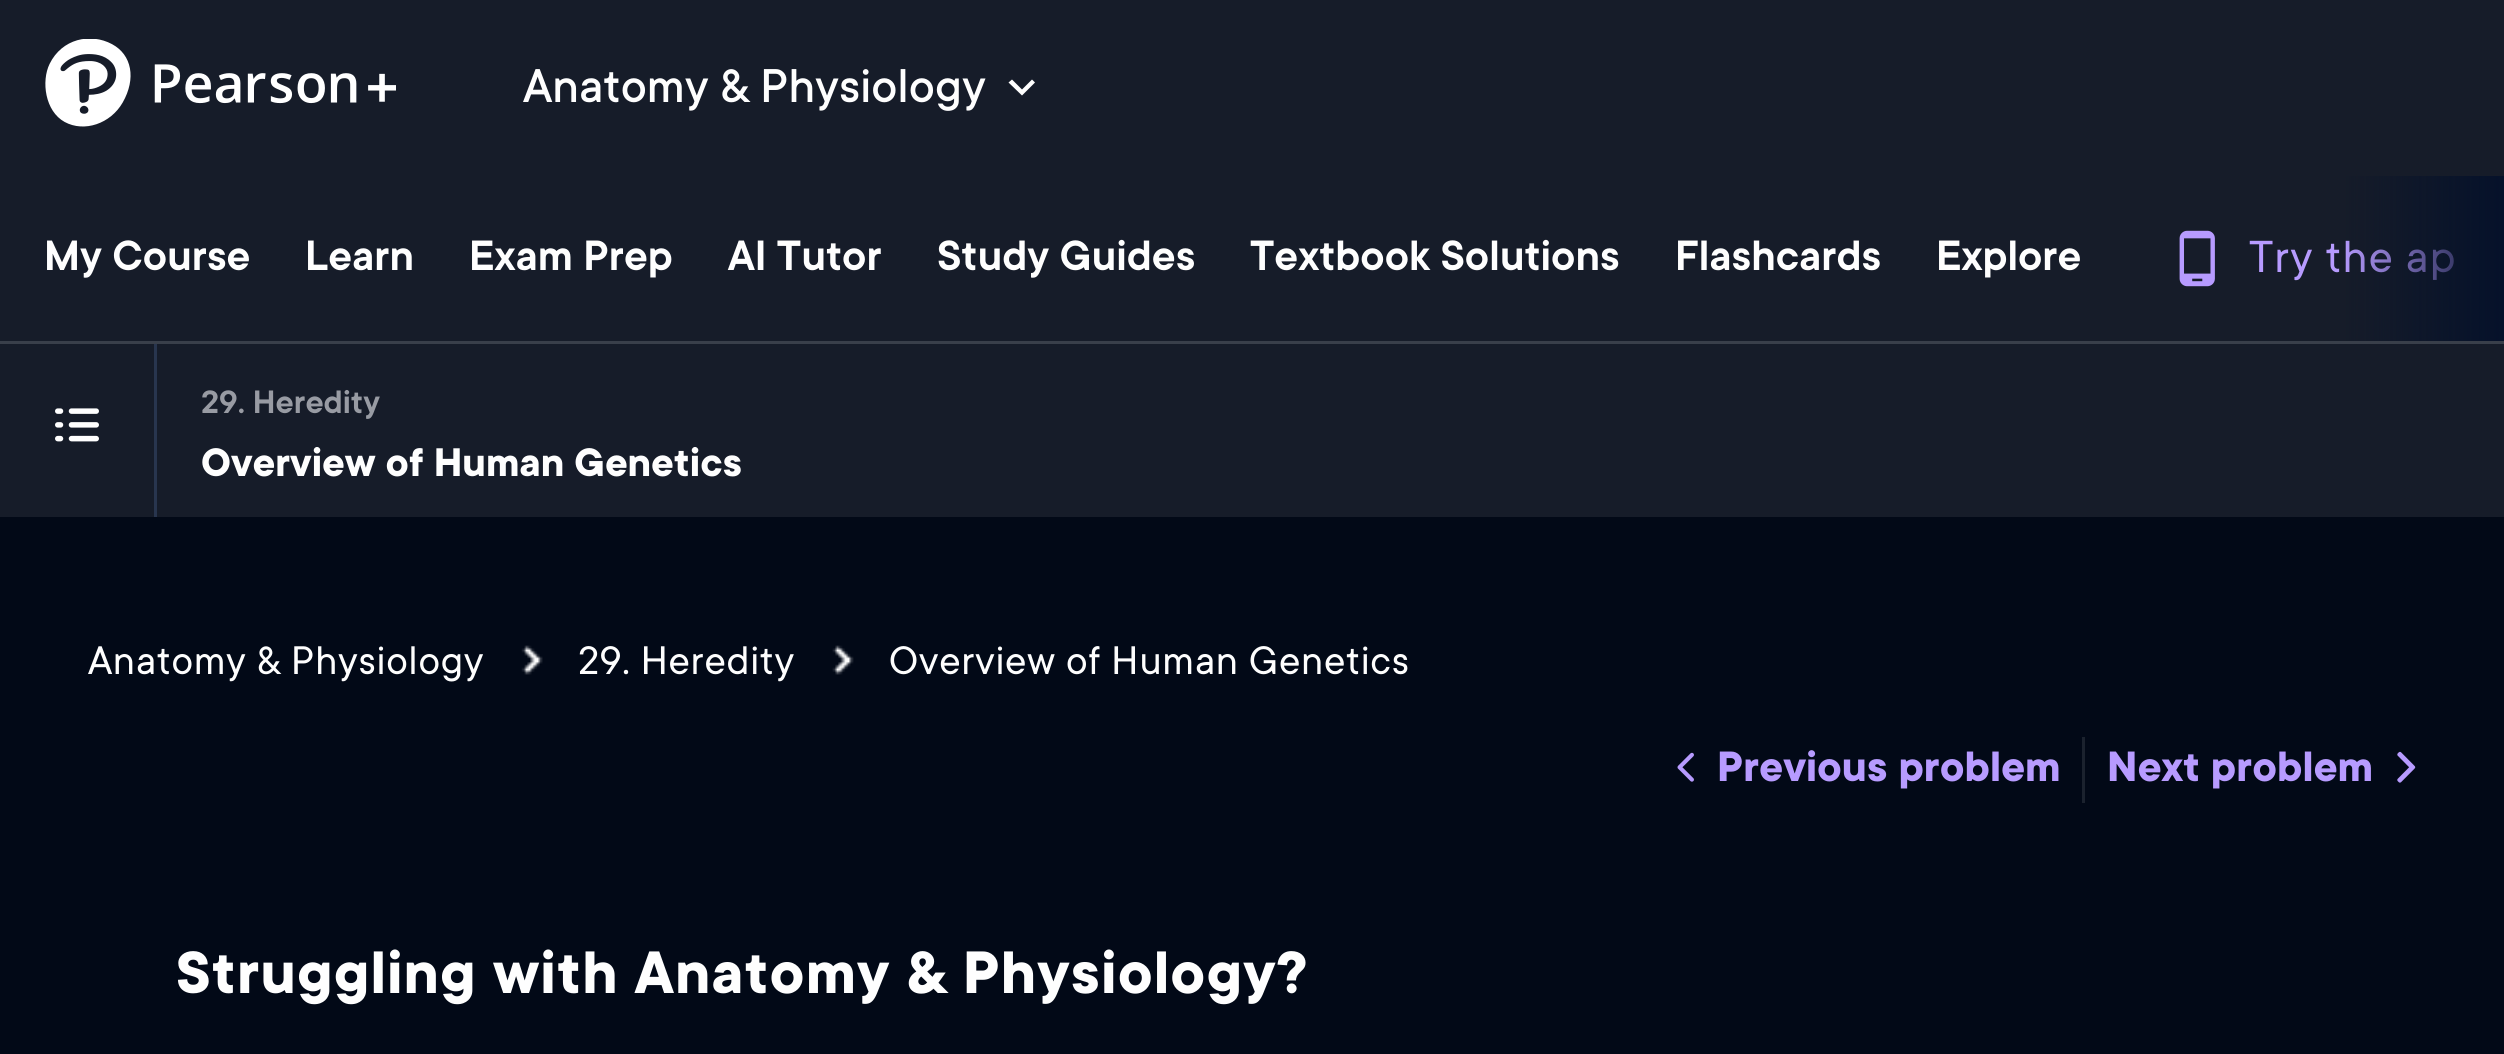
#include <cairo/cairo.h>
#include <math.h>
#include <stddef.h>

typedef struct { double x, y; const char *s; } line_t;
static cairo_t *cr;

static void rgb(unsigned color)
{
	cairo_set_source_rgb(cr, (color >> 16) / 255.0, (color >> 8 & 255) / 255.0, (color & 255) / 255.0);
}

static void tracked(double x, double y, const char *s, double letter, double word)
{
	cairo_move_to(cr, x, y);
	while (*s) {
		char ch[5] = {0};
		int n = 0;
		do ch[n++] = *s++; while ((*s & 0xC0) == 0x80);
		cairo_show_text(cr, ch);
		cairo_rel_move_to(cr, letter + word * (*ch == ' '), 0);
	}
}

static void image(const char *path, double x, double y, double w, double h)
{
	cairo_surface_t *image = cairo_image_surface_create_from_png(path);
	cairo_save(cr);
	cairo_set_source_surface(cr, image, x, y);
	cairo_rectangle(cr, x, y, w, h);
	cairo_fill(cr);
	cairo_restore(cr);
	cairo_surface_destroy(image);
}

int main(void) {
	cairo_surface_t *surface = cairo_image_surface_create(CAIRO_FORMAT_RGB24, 2504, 1054);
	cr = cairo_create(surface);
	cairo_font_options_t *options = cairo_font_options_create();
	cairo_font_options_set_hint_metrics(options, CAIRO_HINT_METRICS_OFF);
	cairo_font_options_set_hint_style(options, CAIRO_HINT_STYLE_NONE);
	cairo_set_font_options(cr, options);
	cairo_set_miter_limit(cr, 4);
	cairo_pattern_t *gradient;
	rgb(0x020917);
	cairo_paint(cr);
	rgb(0x161c29);
	cairo_rectangle(cr, 0, 0, 2504, 341);
	cairo_fill(cr);
	image("img/1.png", 45, 39, 86, 88);
	image("img/2.png", 154, 64, 242, 40);
	rgb(0xfefefe);
	cairo_new_path(cr);
	cairo_move_to(cr, 1012, 79.5);
	cairo_line_to(cr, 1022, 89.5);
	cairo_line_to(cr, 1032, 79.5);
	cairo_line_to(cr, 1035, 82.5);
	cairo_line_to(cr, 1022, 95.5);
	cairo_line_to(cr, 1008.5, 82.5);
	cairo_close_path(cr);
	cairo_fill(cr);
	rgb(0x393f4a);
	cairo_rectangle(cr, 0, 341, 2504, 3);
	cairo_fill(cr);
	image("img/3.png", 2179, 230, 36, 57);
	rgb(0x161c29);
	cairo_rectangle(cr, 0, 344, 2504, 173);
	cairo_fill(cr);
	image("img/4.png", 55, 408, 44, 34);
	rgb(0x28354e);
	cairo_rectangle(cr, 154, 344, 3, 173);
	cairo_fill(cr);
	image("img/5.png", 521, 645, 22, 30);
	image("img/6.png", 832, 645, 22, 30);
	image("img/7.png", 1677, 752, 17, 30);
	rgb(0x1b222e);
	cairo_rectangle(cr, 2082, 737, 3, 66);
	cairo_fill(cr);
	image("img/8.png", 2397, 751, 19, 32);
	cairo_select_font_face(cr, "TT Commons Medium", CAIRO_FONT_SLANT_NORMAL, CAIRO_FONT_WEIGHT_NORMAL);
	cairo_set_font_size(cr, 52.25);
	rgb(0xfefefe);
	cairo_move_to(cr, 523, 102);
	cairo_show_text(cr, "Anatomy & Physiology");
	cairo_select_font_face(cr, "TT Commons SemiBold", CAIRO_FONT_SLANT_NORMAL, CAIRO_FONT_WEIGHT_NORMAL);
	cairo_set_font_size(cr, 46.75);
	{
		static const line_t items[] = {
			{44, 270, "My Course"},
			{305, 270, "Learn"},
			{469, 270, "Exam Prep"},
			{728, 270, "AI Tutor"},
			{937, 270, "Study Guides"},
			{1250, 270, "Textbook Solutions"},
			{1675, 270, "Flashcards"},
			{1936, 270, "Explore"},
		};
		for (size_t i = 0; i < sizeof items / sizeof *items; i++) {
			cairo_move_to(cr, items[i].x, items[i].y);
			cairo_show_text(cr, items[i].s);
		}
	}
	cairo_select_font_face(cr, "TT Commons", CAIRO_FONT_SLANT_NORMAL, CAIRO_FONT_WEIGHT_NORMAL);
	cairo_set_font_size(cr, 49.5);
	rgb(0xb79bff);
	tracked(2249, 272, "Try the ap", 1.1, 0);
	gradient = cairo_pattern_create_linear(2340, 259, 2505, 259);
	cairo_pattern_add_color_stop_rgba(gradient, 0, 0.02, 0.067, 0.165, 0);
	cairo_pattern_add_color_stop_rgba(gradient, 1, 0.02, 0.067, 0.165, 1);
	cairo_set_source(cr, gradient);
	cairo_pattern_destroy(gradient);
	cairo_rectangle(cr, 2346, 176, 158, 165);
	cairo_fill(cr);
	cairo_select_font_face(cr, "TT Commons SemiBold", CAIRO_FONT_SLANT_NORMAL, CAIRO_FONT_WEIGHT_NORMAL);
	cairo_set_font_size(cr, 35.75);
	rgb(0x989ba3);
	cairo_move_to(cr, 201, 413);
	cairo_show_text(cr, "29. Heredity");
	cairo_select_font_face(cr, "TT Commons", CAIRO_FONT_SLANT_NORMAL, CAIRO_FONT_WEIGHT_BOLD);
	cairo_set_font_size(cr, 44);
	rgb(0xfefefe);
	cairo_move_to(cr, 201, 476);
	cairo_show_text(cr, "Overview of Human Genetics");
	cairo_select_font_face(cr, "TT Commons", CAIRO_FONT_SLANT_NORMAL, CAIRO_FONT_WEIGHT_NORMAL);
	{
		static const line_t items[] = {
			{88, 674, "Anatomy & Physiology"},
			{578, 674, "29. Heredity"},
			{889, 674, "Overview of Human Genetics"},
		};
		for (size_t i = 0; i < sizeof items / sizeof *items; i++) {
			tracked(items[i].x, items[i].y, items[i].s, 0.65, 0);
		}
	}
	cairo_select_font_face(cr, "TT Commons", CAIRO_FONT_SLANT_NORMAL, CAIRO_FONT_WEIGHT_BOLD);
	cairo_set_font_size(cr, 46.75);
	rgb(0xb79bff);
	cairo_move_to(cr, 1717, 781);
	cairo_show_text(cr, "Previous problem");
	cairo_move_to(cr, 2107, 781);
	cairo_show_text(cr, "Next problem");
	cairo_set_font_size(cr, 66);
	rgb(0xfefefe);
	tracked(176, 993, "Struggling with Anatomy & Physiology?", 1.1, 0);
	cairo_surface_write_to_png(surface, "page.png");
	cairo_font_options_destroy(options);
	cairo_destroy(cr);
	cairo_surface_destroy(surface);
	return 0;
}
